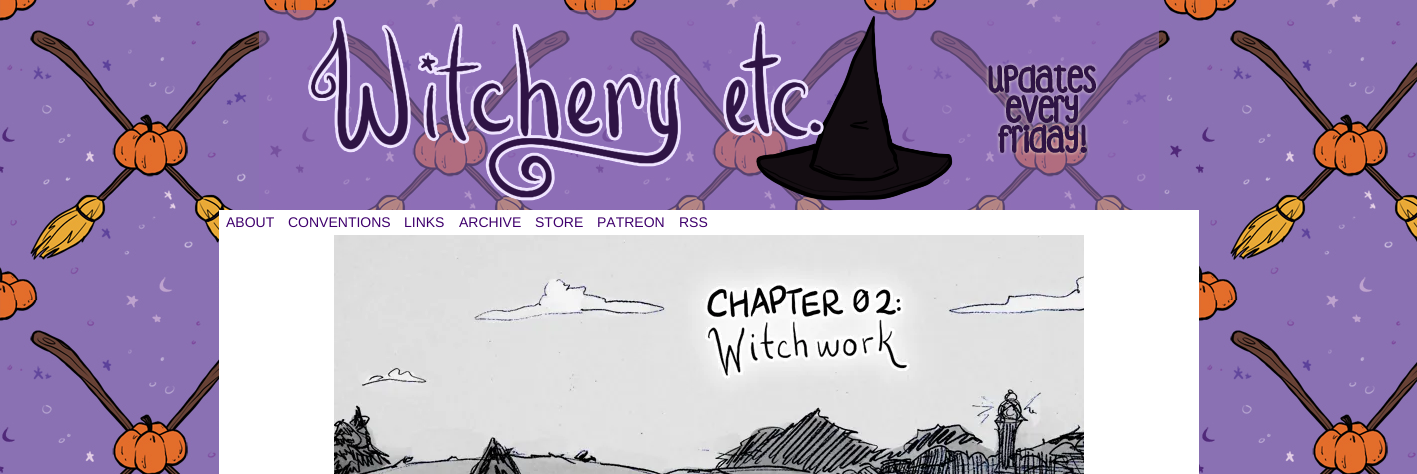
#include <cairo/cairo.h>
#include <math.h>
#include <stddef.h>

typedef struct { double x, y; const char *s; } line_t;
static cairo_t *cr;

static void rgb(unsigned color)
{
	cairo_set_source_rgb(cr, (color >> 16) / 255.0, (color >> 8 & 255) / 255.0, (color & 255) / 255.0);
}

static void image(const char *path, double x, double y, double w, double h)
{
	cairo_surface_t *image = cairo_image_surface_create_from_png(path);
	cairo_save(cr);
	cairo_set_source_surface(cr, image, x, y);
	cairo_rectangle(cr, x, y, w, h);
	cairo_fill(cr);
	cairo_restore(cr);
	cairo_surface_destroy(image);
}

int main(void) {
	cairo_surface_t *surface = cairo_image_surface_create(CAIRO_FORMAT_RGB24, 1417, 474);
	cr = cairo_create(surface);
	cairo_font_options_t *options = cairo_font_options_create();
	cairo_font_options_set_hint_metrics(options, CAIRO_HINT_METRICS_OFF);
	cairo_font_options_set_hint_style(options, CAIRO_HINT_STYLE_NONE);
	cairo_set_font_options(cr, options);
	cairo_set_miter_limit(cr, 4);
	rgb(0xffffff);
	cairo_paint(cr);
	image("img/1.png", 0, 0, 1417, 474);
	image("img/2.png", 259, 10, 900, 200);
	rgb(0xffffff);
	cairo_rectangle(cr, 219, 210, 980, 264);
	cairo_fill(cr);
	image("img/3.png", 334, 235, 750, 239);
	cairo_select_font_face(cr, "Liberation Sans", CAIRO_FONT_SLANT_NORMAL, CAIRO_FONT_WEIGHT_NORMAL);
	cairo_set_font_size(cr, 14);
	rgb(0x3f006d);
	{
		static const line_t items[] = {
			{226, 227, "ABOUT"},
			{288, 227, "CONVENTIONS"},
			{404, 227, "LINKS"},
			{459, 227, "ARCHIVE"},
			{535, 227, "STORE"},
			{597, 227, "PATREON"},
			{679, 227, "RSS"},
		};
		for (size_t i = 0; i < sizeof items / sizeof *items; i++) {
			cairo_move_to(cr, items[i].x, items[i].y);
			cairo_show_text(cr, items[i].s);
		}
	}
	cairo_surface_write_to_png(surface, "page.png");
	cairo_font_options_destroy(options);
	cairo_destroy(cr);
	cairo_surface_destroy(surface);
	return 0;
}
